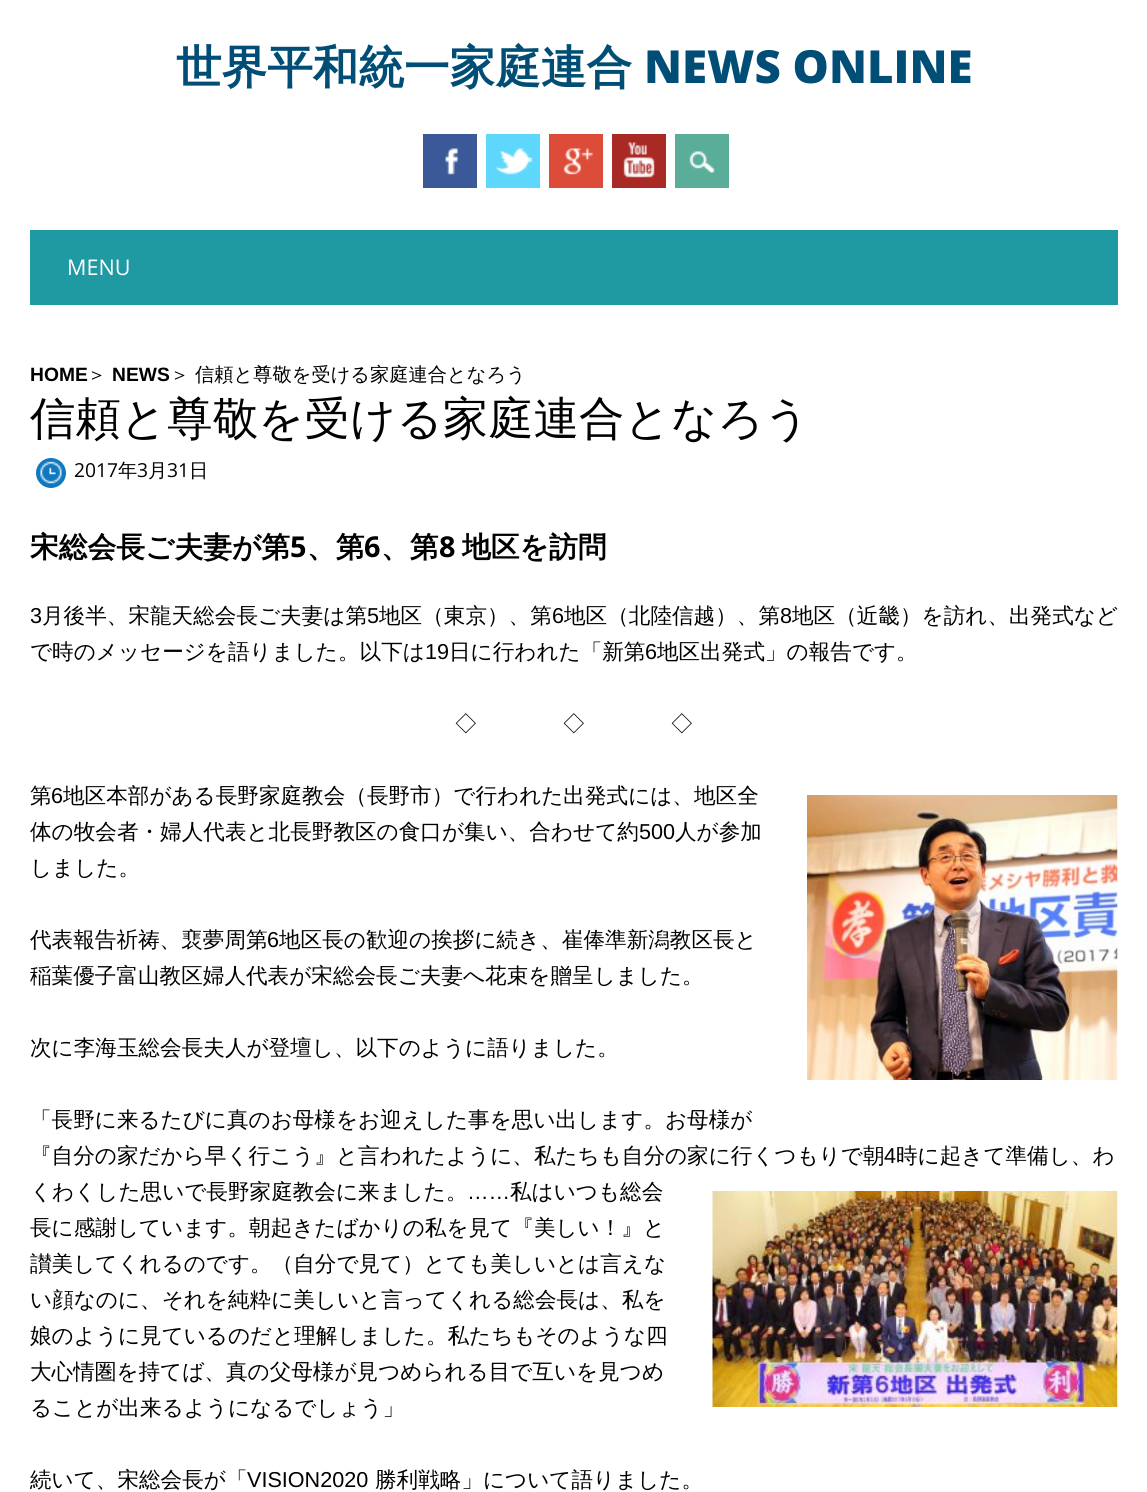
#include <cairo/cairo.h>
#include <math.h>
#include <stddef.h>

typedef struct { double x, y; const char *s; } line_t;
static cairo_t *cr;

static void rgb(unsigned color)
{
	cairo_set_source_rgb(cr, (color >> 16) / 255.0, (color >> 8 & 255) / 255.0, (color & 255) / 255.0);
}

static void image(const char *path, double x, double y, double w, double h)
{
	cairo_surface_t *image = cairo_image_surface_create_from_png(path);
	cairo_save(cr);
	cairo_set_source_surface(cr, image, x, y);
	cairo_rectangle(cr, x, y, w, h);
	cairo_fill(cr);
	cairo_restore(cr);
	cairo_surface_destroy(image);
}

int main(void) {
	cairo_surface_t *surface = cairo_image_surface_create(CAIRO_FORMAT_RGB24, 1147, 1492);
	cr = cairo_create(surface);
	cairo_font_options_t *options = cairo_font_options_create();
	cairo_font_options_set_hint_metrics(options, CAIRO_HINT_METRICS_OFF);
	cairo_font_options_set_hint_style(options, CAIRO_HINT_STYLE_NONE);
	cairo_set_font_options(cr, options);
	cairo_set_miter_limit(cr, 4);
	rgb(0xffffff);
	cairo_paint(cr);
	rgb(0x3b5998);
	cairo_rectangle(cr, 423, 134, 54, 54);
	cairo_fill(cr);
	image("img/1.png", 445, 148, 13, 27);
	rgb(0x5dd7fc);
	cairo_rectangle(cr, 486, 134, 54, 54);
	cairo_fill(cr);
	image("img/2.png", 496, 148, 37, 27);
	rgb(0xdd4b39);
	cairo_rectangle(cr, 549, 134, 54, 54);
	cairo_fill(cr);
	image("img/3.png", 563, 148, 30, 27);
	rgb(0xa92925);
	cairo_rectangle(cr, 612, 134, 54, 54);
	cairo_fill(cr);
	image("img/4.png", 623, 142, 32, 36);
	rgb(0x5aad98);
	cairo_rectangle(cr, 675, 134, 54, 54);
	cairo_fill(cr);
	image("img/5.png", 689, 151, 26, 22);
	rgb(0x1f9aa3);
	cairo_rectangle(cr, 30, 230, 1088, 75);
	cairo_fill(cr);
	rgb(0x0f78bf);
	cairo_arc(cr, 51, 473, 15, 0, 2 * M_PI);
	cairo_fill(cr);
	image("img/6.png", 40, 461, 22, 23);
	image("img/7.png", 807, 795, 311, 285);
	image("img/8.png", 712, 1191, 406, 216);
	cairo_select_font_face(cr, "WenQuanYi Zen Hei", CAIRO_FONT_SLANT_NORMAL, CAIRO_FONT_WEIGHT_BOLD);
	cairo_set_font_size(cr, 45.6);
	rgb(0x004e75);
	cairo_move_to(cr, 176, 83);
	cairo_show_text(cr, "世界平和統一家庭連合");
	cairo_select_font_face(cr, "Open Sans ExtraBold", CAIRO_FONT_SLANT_NORMAL, CAIRO_FONT_WEIGHT_NORMAL);
	cairo_move_to(cr, 644, 83);
	cairo_show_text(cr, "NEWS ONLINE");
	cairo_select_font_face(cr, "Open Sans", CAIRO_FONT_SLANT_NORMAL, CAIRO_FONT_WEIGHT_NORMAL);
	cairo_set_font_size(cr, 21.6);
	rgb(0xffffff);
	cairo_move_to(cr, 67, 275);
	cairo_show_text(cr, "MENU");
	cairo_select_font_face(cr, "Liberation Sans", CAIRO_FONT_SLANT_NORMAL, CAIRO_FONT_WEIGHT_BOLD);
	cairo_set_font_size(cr, 19.25);
	rgb(0x000000);
	cairo_move_to(cr, 30, 381);
	cairo_show_text(cr, "HOME");
	cairo_select_font_face(cr, "WenQuanYi Zen Hei Medium", CAIRO_FONT_SLANT_NORMAL, CAIRO_FONT_WEIGHT_NORMAL);
	cairo_move_to(cr, 87, 381);
	cairo_show_text(cr, "＞");
	cairo_select_font_face(cr, "Liberation Sans", CAIRO_FONT_SLANT_NORMAL, CAIRO_FONT_WEIGHT_BOLD);
	cairo_move_to(cr, 112, 381);
	cairo_show_text(cr, "NEWS");
	cairo_select_font_face(cr, "WenQuanYi Zen Hei Medium", CAIRO_FONT_SLANT_NORMAL, CAIRO_FONT_WEIGHT_NORMAL);
	cairo_move_to(cr, 170, 381);
	cairo_show_text(cr, "＞ 信頼と尊敬を受ける家庭連合となろう");
	cairo_set_font_size(cr, 45.4);
	cairo_move_to(cr, 30, 434);
	cairo_show_text(cr, "信頼と尊敬を受ける家庭連合となろう");
	cairo_select_font_face(cr, "Open Sans", CAIRO_FONT_SLANT_NORMAL, CAIRO_FONT_WEIGHT_NORMAL);
	cairo_set_font_size(cr, 19.25);
	cairo_move_to(cr, 74, 477);
	cairo_show_text(cr, "2017");
	cairo_select_font_face(cr, "WenQuanYi Zen Hei Medium", CAIRO_FONT_SLANT_NORMAL, CAIRO_FONT_WEIGHT_NORMAL);
	cairo_move_to(cr, 118, 477);
	cairo_show_text(cr, "年");
	cairo_select_font_face(cr, "Open Sans", CAIRO_FONT_SLANT_NORMAL, CAIRO_FONT_WEIGHT_NORMAL);
	cairo_move_to(cr, 137, 477);
	cairo_show_text(cr, "3");
	cairo_select_font_face(cr, "WenQuanYi Zen Hei Medium", CAIRO_FONT_SLANT_NORMAL, CAIRO_FONT_WEIGHT_NORMAL);
	cairo_move_to(cr, 148, 477);
	cairo_show_text(cr, "月");
	cairo_select_font_face(cr, "Open Sans", CAIRO_FONT_SLANT_NORMAL, CAIRO_FONT_WEIGHT_NORMAL);
	cairo_move_to(cr, 167, 477);
	cairo_show_text(cr, "31");
	cairo_select_font_face(cr, "WenQuanYi Zen Hei Medium", CAIRO_FONT_SLANT_NORMAL, CAIRO_FONT_WEIGHT_NORMAL);
	cairo_move_to(cr, 189, 477);
	cairo_show_text(cr, "日");
	cairo_select_font_face(cr, "WenQuanYi Zen Hei", CAIRO_FONT_SLANT_NORMAL, CAIRO_FONT_WEIGHT_BOLD);
	cairo_set_font_size(cr, 28.75);
	cairo_move_to(cr, 30, 557);
	cairo_show_text(cr, "宋総会長ご夫妻が第");
	cairo_select_font_face(cr, "Open Sans", CAIRO_FONT_SLANT_NORMAL, CAIRO_FONT_WEIGHT_BOLD);
	cairo_move_to(cr, 290, 557);
	cairo_show_text(cr, "5");
	cairo_select_font_face(cr, "WenQuanYi Zen Hei", CAIRO_FONT_SLANT_NORMAL, CAIRO_FONT_WEIGHT_BOLD);
	cairo_move_to(cr, 307, 557);
	cairo_show_text(cr, "、第");
	cairo_select_font_face(cr, "Open Sans", CAIRO_FONT_SLANT_NORMAL, CAIRO_FONT_WEIGHT_BOLD);
	cairo_move_to(cr, 364, 557);
	cairo_show_text(cr, "6");
	cairo_select_font_face(cr, "WenQuanYi Zen Hei", CAIRO_FONT_SLANT_NORMAL, CAIRO_FONT_WEIGHT_BOLD);
	cairo_move_to(cr, 381, 557);
	cairo_show_text(cr, "、第");
	cairo_select_font_face(cr, "Open Sans", CAIRO_FONT_SLANT_NORMAL, CAIRO_FONT_WEIGHT_BOLD);
	cairo_move_to(cr, 439, 557);
	cairo_show_text(cr, "8");
	cairo_select_font_face(cr, "WenQuanYi Zen Hei", CAIRO_FONT_SLANT_NORMAL, CAIRO_FONT_WEIGHT_BOLD);
	cairo_move_to(cr, 462, 557);
	cairo_show_text(cr, "地区を訪問");
	cairo_select_font_face(cr, "Liberation Sans", CAIRO_FONT_SLANT_NORMAL, CAIRO_FONT_WEIGHT_NORMAL);
	cairo_set_font_size(cr, 21.6);
	cairo_move_to(cr, 30, 623);
	cairo_show_text(cr, "3");
	cairo_select_font_face(cr, "WenQuanYi Zen Hei Medium", CAIRO_FONT_SLANT_NORMAL, CAIRO_FONT_WEIGHT_NORMAL);
	cairo_move_to(cr, 42, 623);
	cairo_show_text(cr, "月後半、宋龍天総会長ご夫妻は第");
	cairo_select_font_face(cr, "Liberation Sans", CAIRO_FONT_SLANT_NORMAL, CAIRO_FONT_WEIGHT_NORMAL);
	cairo_move_to(cr, 367, 623);
	cairo_show_text(cr, "5");
	cairo_select_font_face(cr, "WenQuanYi Zen Hei Medium", CAIRO_FONT_SLANT_NORMAL, CAIRO_FONT_WEIGHT_NORMAL);
	cairo_move_to(cr, 379, 623);
	cairo_show_text(cr, "地区（東京）、第");
	cairo_select_font_face(cr, "Liberation Sans", CAIRO_FONT_SLANT_NORMAL, CAIRO_FONT_WEIGHT_NORMAL);
	cairo_move_to(cr, 552, 623);
	cairo_show_text(cr, "6");
	cairo_select_font_face(cr, "WenQuanYi Zen Hei Medium", CAIRO_FONT_SLANT_NORMAL, CAIRO_FONT_WEIGHT_NORMAL);
	cairo_move_to(cr, 564, 623);
	cairo_show_text(cr, "地区（北陸信越）、第");
	cairo_select_font_face(cr, "Liberation Sans", CAIRO_FONT_SLANT_NORMAL, CAIRO_FONT_WEIGHT_NORMAL);
	cairo_move_to(cr, 780, 623);
	cairo_show_text(cr, "8");
	cairo_select_font_face(cr, "WenQuanYi Zen Hei Medium", CAIRO_FONT_SLANT_NORMAL, CAIRO_FONT_WEIGHT_NORMAL);
	cairo_move_to(cr, 792, 623);
	cairo_show_text(cr, "地区（近畿）を訪れ、出発式など");
	cairo_move_to(cr, 30, 659);
	cairo_show_text(cr, "で時のメッセージを語りました。以下は");
	cairo_select_font_face(cr, "Liberation Sans", CAIRO_FONT_SLANT_NORMAL, CAIRO_FONT_WEIGHT_NORMAL);
	cairo_move_to(cr, 425, 659);
	cairo_show_text(cr, "19");
	cairo_select_font_face(cr, "WenQuanYi Zen Hei Medium", CAIRO_FONT_SLANT_NORMAL, CAIRO_FONT_WEIGHT_NORMAL);
	cairo_move_to(cr, 449, 659);
	cairo_show_text(cr, "日に行われた「新第");
	cairo_select_font_face(cr, "Liberation Sans", CAIRO_FONT_SLANT_NORMAL, CAIRO_FONT_WEIGHT_NORMAL);
	cairo_move_to(cr, 645, 659);
	cairo_show_text(cr, "6");
	cairo_select_font_face(cr, "WenQuanYi Zen Hei Medium", CAIRO_FONT_SLANT_NORMAL, CAIRO_FONT_WEIGHT_NORMAL);
	{
		static const line_t items[] = {
			{657, 659, "地区出発式」の報告です。"},
			{455, 731, "◇　　　　◇　　　　◇"},
			{30, 803, "第"},
		};
		for (size_t i = 0; i < sizeof items / sizeof *items; i++) {
			cairo_move_to(cr, items[i].x, items[i].y);
			cairo_show_text(cr, items[i].s);
		}
	}
	cairo_select_font_face(cr, "Liberation Sans", CAIRO_FONT_SLANT_NORMAL, CAIRO_FONT_WEIGHT_NORMAL);
	cairo_move_to(cr, 51, 803);
	cairo_show_text(cr, "6");
	cairo_select_font_face(cr, "WenQuanYi Zen Hei Medium", CAIRO_FONT_SLANT_NORMAL, CAIRO_FONT_WEIGHT_NORMAL);
	cairo_move_to(cr, 63, 803);
	cairo_show_text(cr, "地区本部がある長野家庭教会（長野市）で行われた出発式には、地区全");
	cairo_move_to(cr, 30, 839);
	cairo_show_text(cr, "体の牧会者・婦人代表と北長野教区の食口が集い、合わせて約");
	cairo_select_font_face(cr, "Liberation Sans", CAIRO_FONT_SLANT_NORMAL, CAIRO_FONT_WEIGHT_NORMAL);
	cairo_move_to(cr, 639, 839);
	cairo_show_text(cr, "500");
	cairo_select_font_face(cr, "WenQuanYi Zen Hei Medium", CAIRO_FONT_SLANT_NORMAL, CAIRO_FONT_WEIGHT_NORMAL);
	{
		static const line_t items[] = {
			{675, 839, "人が参加"},
			{30, 875, "しました。"},
			{30, 947, "代表報告祈祷、裵夢周第"},
		};
		for (size_t i = 0; i < sizeof items / sizeof *items; i++) {
			cairo_move_to(cr, items[i].x, items[i].y);
			cairo_show_text(cr, items[i].s);
		}
	}
	cairo_select_font_face(cr, "Liberation Sans", CAIRO_FONT_SLANT_NORMAL, CAIRO_FONT_WEIGHT_NORMAL);
	cairo_move_to(cr, 267, 947);
	cairo_show_text(cr, "6");
	cairo_select_font_face(cr, "WenQuanYi Zen Hei Medium", CAIRO_FONT_SLANT_NORMAL, CAIRO_FONT_WEIGHT_NORMAL);
	{
		static const line_t items[] = {
			{279, 947, "地区長の歓迎の挨拶に続き、崔俸準新潟教区長と"},
			{30, 983, "稲葉優子富山教区婦人代表が宋総会長ご夫妻へ花束を贈呈しました。"},
			{30, 1055, "次に李海玉総会長夫人が登壇し、以下のように語りました。"},
			{30, 1127, "「長野に来るたびに真のお母様をお迎えした事を思い出します。お母様が"},
			{30, 1163, "『自分の家だから早く行こう』と言われたように、私たちも自分の家に行くつもりで朝"},
		};
		for (size_t i = 0; i < sizeof items / sizeof *items; i++) {
			cairo_move_to(cr, items[i].x, items[i].y);
			cairo_show_text(cr, items[i].s);
		}
	}
	cairo_select_font_face(cr, "Liberation Sans", CAIRO_FONT_SLANT_NORMAL, CAIRO_FONT_WEIGHT_NORMAL);
	cairo_move_to(cr, 884, 1163);
	cairo_show_text(cr, "4");
	cairo_select_font_face(cr, "WenQuanYi Zen Hei Medium", CAIRO_FONT_SLANT_NORMAL, CAIRO_FONT_WEIGHT_NORMAL);
	cairo_move_to(cr, 896, 1163);
	cairo_show_text(cr, "時に起きて準備し、わ");
	cairo_move_to(cr, 30, 1199);
	cairo_show_text(cr, "くわくした思いで長野家庭教会に来ました。");
	cairo_select_font_face(cr, "Liberation Sans", CAIRO_FONT_SLANT_NORMAL, CAIRO_FONT_WEIGHT_NORMAL);
	cairo_move_to(cr, 467, 1199);
	cairo_show_text(cr, "……");
	cairo_select_font_face(cr, "WenQuanYi Zen Hei Medium", CAIRO_FONT_SLANT_NORMAL, CAIRO_FONT_WEIGHT_NORMAL);
	{
		static const line_t items[] = {
			{510, 1199, "私はいつも総会"},
			{30, 1235, "長に感謝しています。朝起きたばかりの私を見て『美しい！』と"},
			{30, 1271, "讃美してくれるのです。（自分で見て）とても美しいとは言えな"},
			{30, 1307, "い顔なのに、それを純粋に美しいと言ってくれる総会長は、私を"},
			{30, 1343, "娘のように見ているのだと理解しました。私たちもそのような四"},
			{30, 1379, "大心情圏を持てば、真の父母様が見つめられる目で互いを見つめ"},
			{30, 1415, "ることが出来るようになるでしょう」"},
			{30, 1487, "続いて、宋総会長が「"},
		};
		for (size_t i = 0; i < sizeof items / sizeof *items; i++) {
			cairo_move_to(cr, items[i].x, items[i].y);
			cairo_show_text(cr, items[i].s);
		}
	}
	cairo_select_font_face(cr, "Liberation Sans", CAIRO_FONT_SLANT_NORMAL, CAIRO_FONT_WEIGHT_NORMAL);
	cairo_move_to(cr, 247, 1487);
	cairo_show_text(cr, "VISION2020");
	cairo_select_font_face(cr, "WenQuanYi Zen Hei Medium", CAIRO_FONT_SLANT_NORMAL, CAIRO_FONT_WEIGHT_NORMAL);
	cairo_move_to(cr, 375, 1487);
	cairo_show_text(cr, "勝利戦略」について語りました。");
	cairo_surface_write_to_png(surface, "page.png");
	cairo_font_options_destroy(options);
	cairo_destroy(cr);
	cairo_surface_destroy(surface);
	return 0;
}
